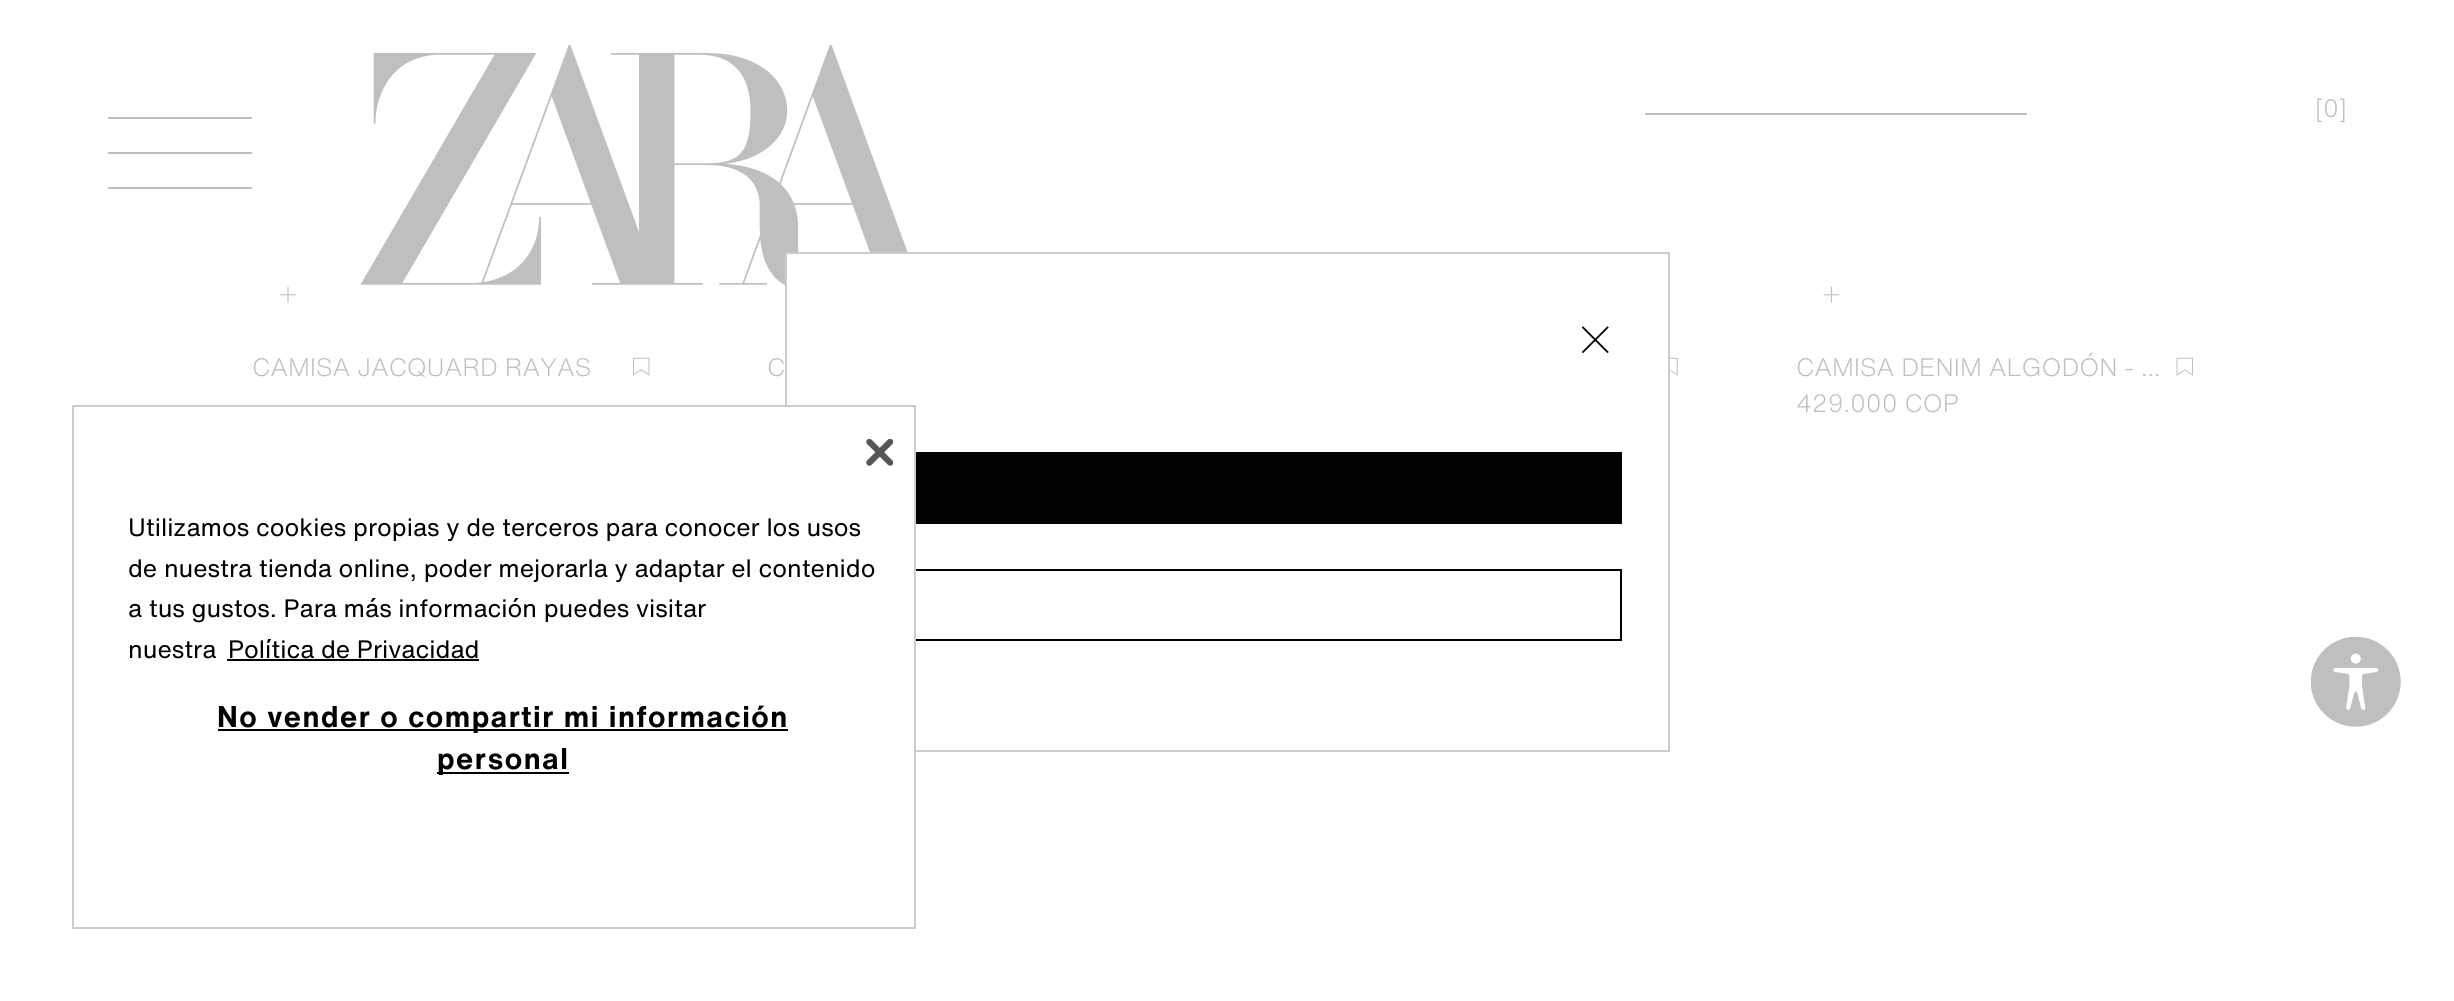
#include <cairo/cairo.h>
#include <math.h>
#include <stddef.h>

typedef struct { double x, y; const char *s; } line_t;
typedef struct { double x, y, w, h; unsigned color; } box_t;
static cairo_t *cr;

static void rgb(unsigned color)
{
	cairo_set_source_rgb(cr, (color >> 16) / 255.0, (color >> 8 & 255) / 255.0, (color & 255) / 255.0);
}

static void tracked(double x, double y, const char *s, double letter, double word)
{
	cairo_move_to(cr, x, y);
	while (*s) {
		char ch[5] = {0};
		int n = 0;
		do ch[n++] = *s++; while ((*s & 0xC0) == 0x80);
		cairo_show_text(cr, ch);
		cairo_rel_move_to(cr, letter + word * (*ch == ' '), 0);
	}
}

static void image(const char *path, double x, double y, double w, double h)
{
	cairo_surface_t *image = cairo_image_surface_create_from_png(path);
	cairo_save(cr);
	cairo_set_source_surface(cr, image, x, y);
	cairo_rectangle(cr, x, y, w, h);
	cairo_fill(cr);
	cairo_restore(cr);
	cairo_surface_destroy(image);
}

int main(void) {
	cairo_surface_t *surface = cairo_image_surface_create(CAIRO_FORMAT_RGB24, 2454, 1001);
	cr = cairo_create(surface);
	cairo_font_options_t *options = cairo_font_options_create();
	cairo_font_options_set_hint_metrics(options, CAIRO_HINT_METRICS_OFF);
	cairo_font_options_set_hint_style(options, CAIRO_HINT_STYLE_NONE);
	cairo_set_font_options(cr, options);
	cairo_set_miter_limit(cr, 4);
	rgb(0xffffff);
	cairo_paint(cr);
	image("img/1.png", 360, 45, 548, 240);
	rgb(0xbfbfbf);
	cairo_rectangle(cr, 1645, 113, 382, 2);
	cairo_fill(cr);
	cairo_set_fill_rule(cr, CAIRO_FILL_RULE_EVEN_ODD);
	cairo_new_path(cr);
	cairo_move_to(cr, 252, 119);
	cairo_line_to(cr, 108, 119);
	cairo_line_to(cr, 108, 117);
	cairo_line_to(cr, 252, 117);
	cairo_close_path(cr);
	cairo_move_to(cr, 252, 154);
	cairo_line_to(cr, 108, 154);
	cairo_line_to(cr, 108, 152);
	cairo_line_to(cr, 252, 152);
	cairo_close_path(cr);
	cairo_move_to(cr, 108, 189);
	cairo_line_to(cr, 252, 189);
	cairo_line_to(cr, 252, 187);
	cairo_line_to(cr, 108, 187);
	cairo_close_path(cr);
	cairo_fill(cr);
	image("img/2.png", 280, 286, 16, 17);
	image("img/3.png", 633, 357, 17, 19);
	image("img/4.png", 1670, 357, 8, 19);
	image("img/5.png", 1823, 286, 17, 17);
	image("img/6.png", 2176, 357, 17, 19);
	image("img/7.png", 2311, 637, 90, 90);
	rgb(0xffffff);
	cairo_rectangle(cr, 787, 254, 121, 31);
	cairo_fill(cr);
	cairo_rectangle(cr, 786, 253, 883, 498);
	rgb(0xcccccc);
	cairo_stroke(cr);
	cairo_rectangle(cr, 834, 570, 787, 70);
	rgb(0x000000);
	cairo_stroke(cr);
	rgb(0xffffff);
	cairo_rectangle(cr, 785, 407, 129, 345);
	cairo_fill(cr);
	cairo_rectangle(cr, 73, 406, 842, 522);
	rgb(0xcccccc);
	cairo_stroke(cr);
	image("img/8.png", 866, 439, 27, 27);
	{
		static const box_t items[] = {
			{227, 659, 252, 2, 0x000000},
			{218, 729, 570, 2, 0x000000},
			{437, 772, 132, 2, 0x000000},
		};
		for (size_t i = 0; i < sizeof items / sizeof *items; i++) {
			rgb(items[i].color);
			cairo_rectangle(cr, items[i].x, items[i].y, items[i].w, items[i].h);
			cairo_fill(cr);
		}
	}
	image("img/9.png", 1582, 326, 27, 27);
	cairo_rectangle(cr, 916, 452, 706, 72);
	cairo_fill(cr);
	cairo_select_font_face(cr, "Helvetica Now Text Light", CAIRO_FONT_SLANT_NORMAL, CAIRO_FONT_WEIGHT_NORMAL);
	cairo_set_font_size(cr, 24.75);
	rgb(0xbfbfbf);
	{
		static const line_t items[] = {
			{2315, 117, "[0]"},
			{252, 376, "CAMISA JACQUARD RAYAS"},
			{767, 376, "C"},
			{1796, 376, "CAMISA DENIM ALGODÓN - …"},
			{1796, 412, "429.000 COP"},
		};
		for (size_t i = 0; i < sizeof items / sizeof *items; i++) {
			cairo_move_to(cr, items[i].x, items[i].y);
			cairo_show_text(cr, items[i].s);
		}
	}
	cairo_select_font_face(cr, "Helvetica Now Text", CAIRO_FONT_SLANT_NORMAL, CAIRO_FONT_WEIGHT_NORMAL);
	rgb(0x000000);
	{
		static const line_t items[] = {
			{128, 536, "Utilizamos cookies propias y de terceros para conocer los usos"},
			{128, 577, "de nuestra tienda online, poder mejorarla y adaptar el contenido"},
			{128, 617, "a tus gustos. Para más información puedes visitar"},
			{128, 658, "nuestra"},
			{228, 658, "Política de Privacidad"},
		};
		for (size_t i = 0; i < sizeof items / sizeof *items; i++) {
			cairo_move_to(cr, items[i].x, items[i].y);
			cairo_show_text(cr, items[i].s);
		}
	}
	cairo_select_font_face(cr, "Helvetica Now Text", CAIRO_FONT_SLANT_NORMAL, CAIRO_FONT_WEIGHT_BOLD);
	cairo_set_font_size(cr, 29.5);
	tracked(217, 727, "No vender o compartir mi información", 1.5, 0);
	tracked(437, 769, "personal", 1.5, 0);
	cairo_surface_write_to_png(surface, "page.png");
	cairo_font_options_destroy(options);
	cairo_destroy(cr);
	cairo_surface_destroy(surface);
	return 0;
}
